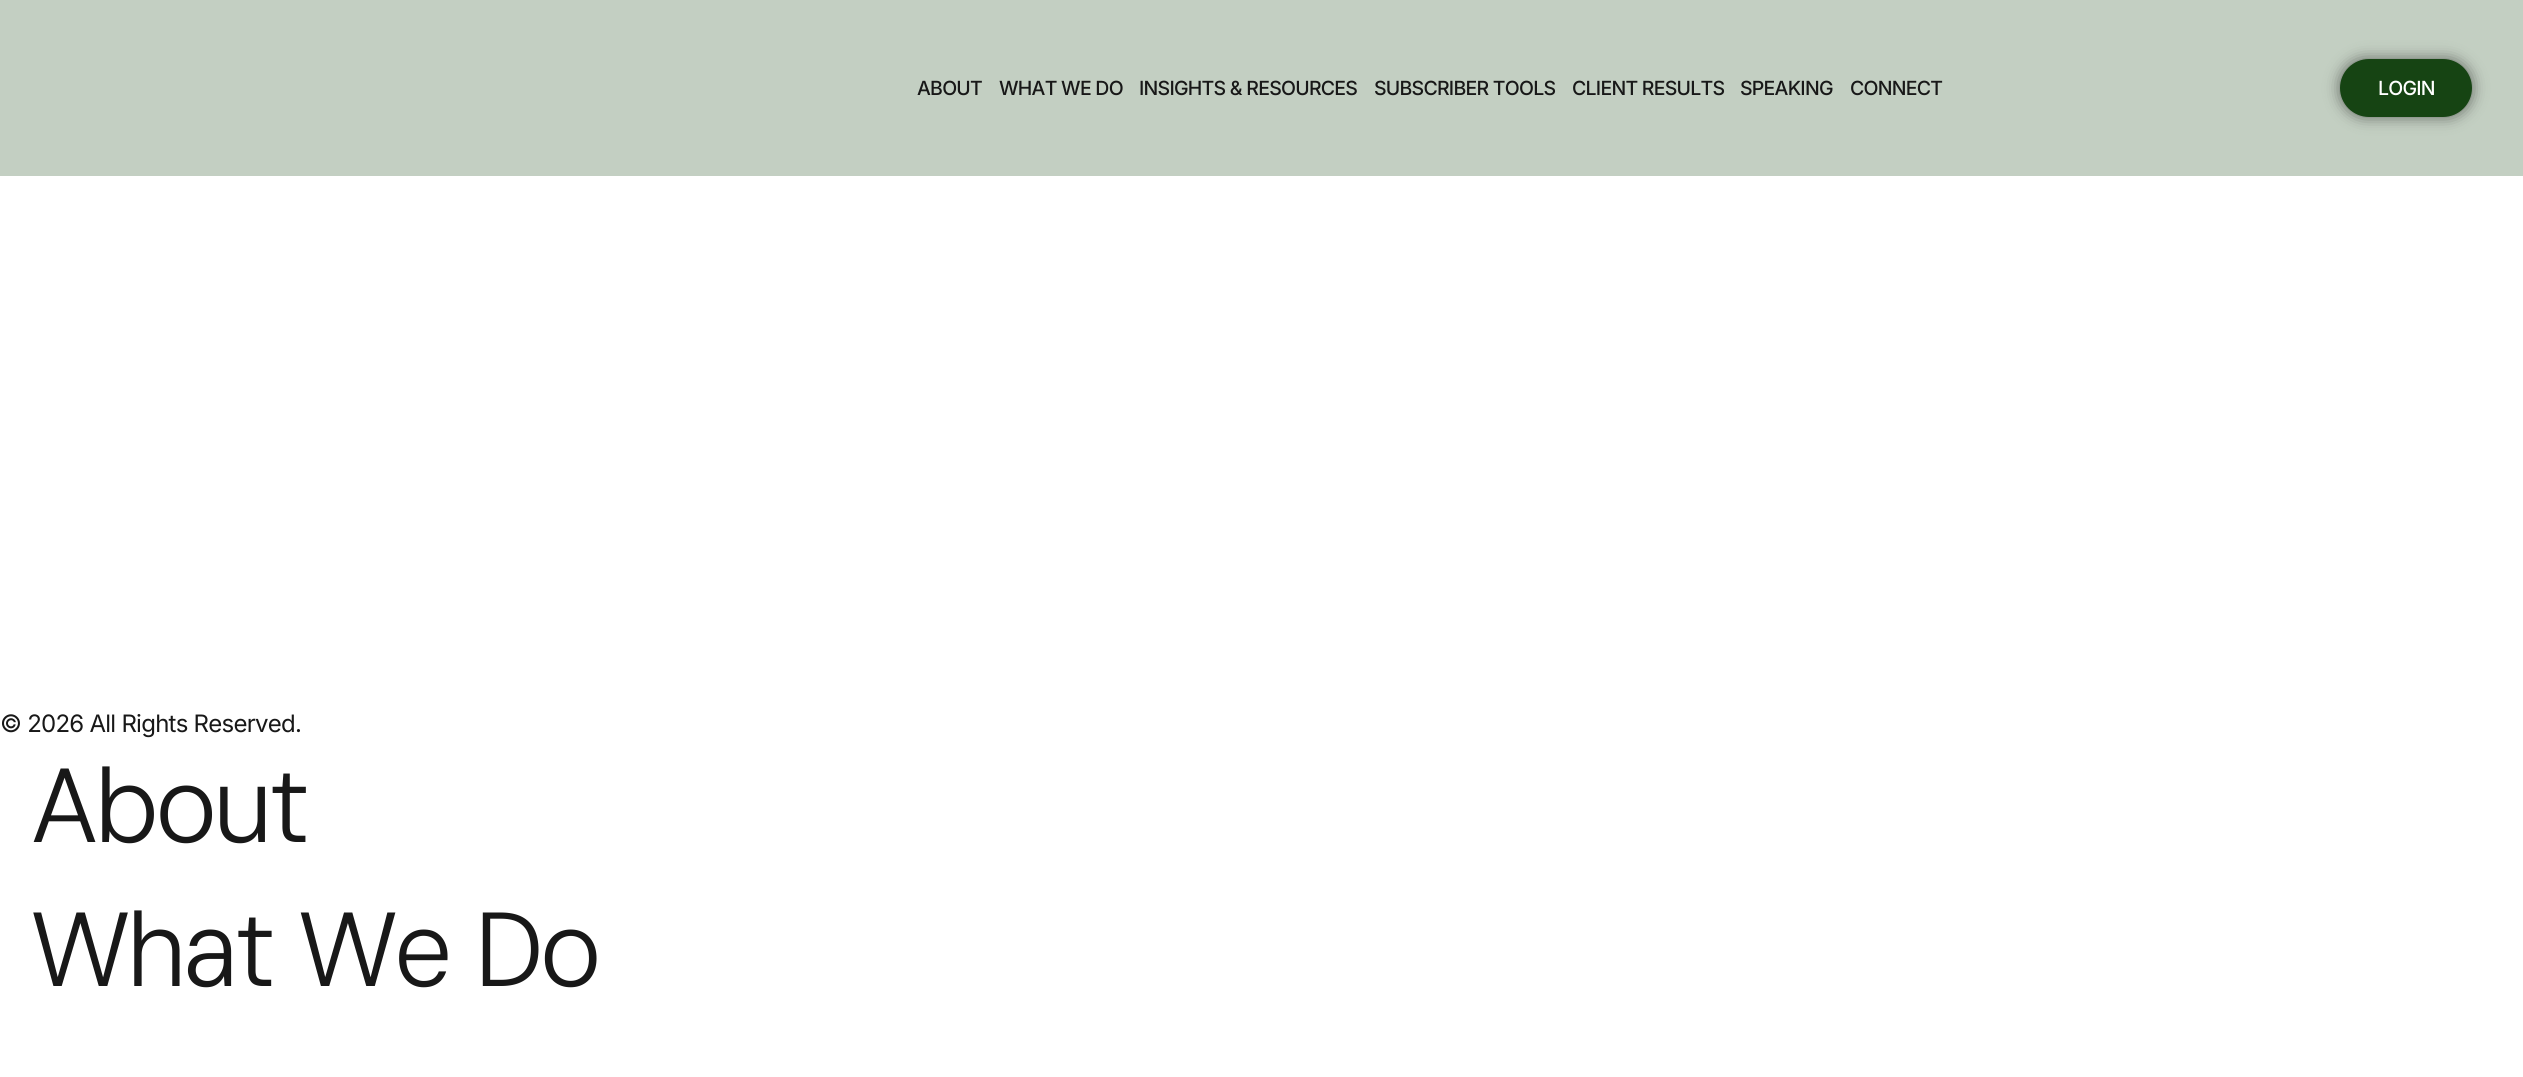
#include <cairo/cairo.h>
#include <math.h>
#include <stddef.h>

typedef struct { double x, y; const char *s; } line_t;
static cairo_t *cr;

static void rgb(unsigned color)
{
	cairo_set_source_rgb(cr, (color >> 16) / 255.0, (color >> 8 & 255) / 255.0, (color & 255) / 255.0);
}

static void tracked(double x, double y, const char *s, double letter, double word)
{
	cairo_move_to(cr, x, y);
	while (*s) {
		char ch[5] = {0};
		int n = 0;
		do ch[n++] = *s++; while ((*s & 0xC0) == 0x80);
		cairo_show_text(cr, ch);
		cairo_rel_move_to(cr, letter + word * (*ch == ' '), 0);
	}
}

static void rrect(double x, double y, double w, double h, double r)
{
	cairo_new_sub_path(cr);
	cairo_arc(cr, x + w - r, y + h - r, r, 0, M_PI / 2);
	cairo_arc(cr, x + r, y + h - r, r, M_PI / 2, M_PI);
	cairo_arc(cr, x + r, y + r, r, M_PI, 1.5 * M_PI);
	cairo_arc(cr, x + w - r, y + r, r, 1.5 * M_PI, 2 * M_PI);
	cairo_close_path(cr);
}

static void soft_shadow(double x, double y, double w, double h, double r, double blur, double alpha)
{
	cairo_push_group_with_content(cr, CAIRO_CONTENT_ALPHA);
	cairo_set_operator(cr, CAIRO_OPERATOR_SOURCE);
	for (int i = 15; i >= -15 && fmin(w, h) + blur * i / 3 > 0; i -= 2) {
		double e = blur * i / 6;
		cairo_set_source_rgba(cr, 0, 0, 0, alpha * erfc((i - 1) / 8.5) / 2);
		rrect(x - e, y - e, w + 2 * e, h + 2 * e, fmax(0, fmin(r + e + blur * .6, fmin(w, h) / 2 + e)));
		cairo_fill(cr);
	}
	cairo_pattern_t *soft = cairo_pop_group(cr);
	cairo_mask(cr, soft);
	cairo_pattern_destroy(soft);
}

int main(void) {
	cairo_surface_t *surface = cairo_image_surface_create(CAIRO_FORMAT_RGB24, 2523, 1077);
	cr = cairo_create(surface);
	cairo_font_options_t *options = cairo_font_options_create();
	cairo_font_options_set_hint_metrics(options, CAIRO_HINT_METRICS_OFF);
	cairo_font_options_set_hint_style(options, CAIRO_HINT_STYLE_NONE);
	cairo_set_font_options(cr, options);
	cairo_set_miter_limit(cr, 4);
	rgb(0xffffff);
	cairo_paint(cr);
	rgb(0xc3cfc2);
	cairo_rectangle(cr, 0, 0, 2523, 176);
	cairo_fill(cr);
	rgb(0x000000);
	soft_shadow(2340, 59, 132, 58, 29, 7.5, 0.5);
	rgb(0x164413);
	rrect(2340, 59, 132, 58, 29);
	cairo_fill(cr);
	cairo_select_font_face(cr, "Inter Medium", CAIRO_FONT_SLANT_NORMAL, CAIRO_FONT_WEIGHT_NORMAL);
	cairo_set_font_size(cr, 19.5);
	rgb(0x181818);
	{
		static const line_t items[] = {
			{917, 95, "ABOUT"},
			{999, 95, "WHAT WE DO"},
			{1139, 95, "INSIGHTS & RESOURCES"},
			{1374, 95, "SUBSCRIBER TOOLS"},
			{1572, 95, "CLIENT RESULTS"},
			{1740, 95, "SPEAKING"},
			{1850, 95, "CONNECT"},
		};
		for (size_t i = 0; i < sizeof items / sizeof *items; i++) {
			tracked(items[i].x, items[i].y, items[i].s, -0.75, 0);
		}
	}
	rgb(0xffffff);
	tracked(2378, 95, "LOGIN", -0.75, 0);
	cairo_select_font_face(cr, "Inter", CAIRO_FONT_SLANT_NORMAL, CAIRO_FONT_WEIGHT_NORMAL);
	cairo_set_font_size(cr, 24);
	rgb(0x181818);
	tracked(0, 732, "© 2026 All Rights Reserved.", -0.75, 0);
	cairo_select_font_face(cr, "DM Sans Light", CAIRO_FONT_SLANT_NORMAL, CAIRO_FONT_WEIGHT_NORMAL);
	cairo_set_font_size(cr, 105);
	tracked(30, 842, "About", -4.5, 0);
	tracked(30, 986, "What We Do", -4.5, 1);
	cairo_surface_write_to_png(surface, "page.png");
	cairo_font_options_destroy(options);
	cairo_destroy(cr);
	cairo_surface_destroy(surface);
	return 0;
}
